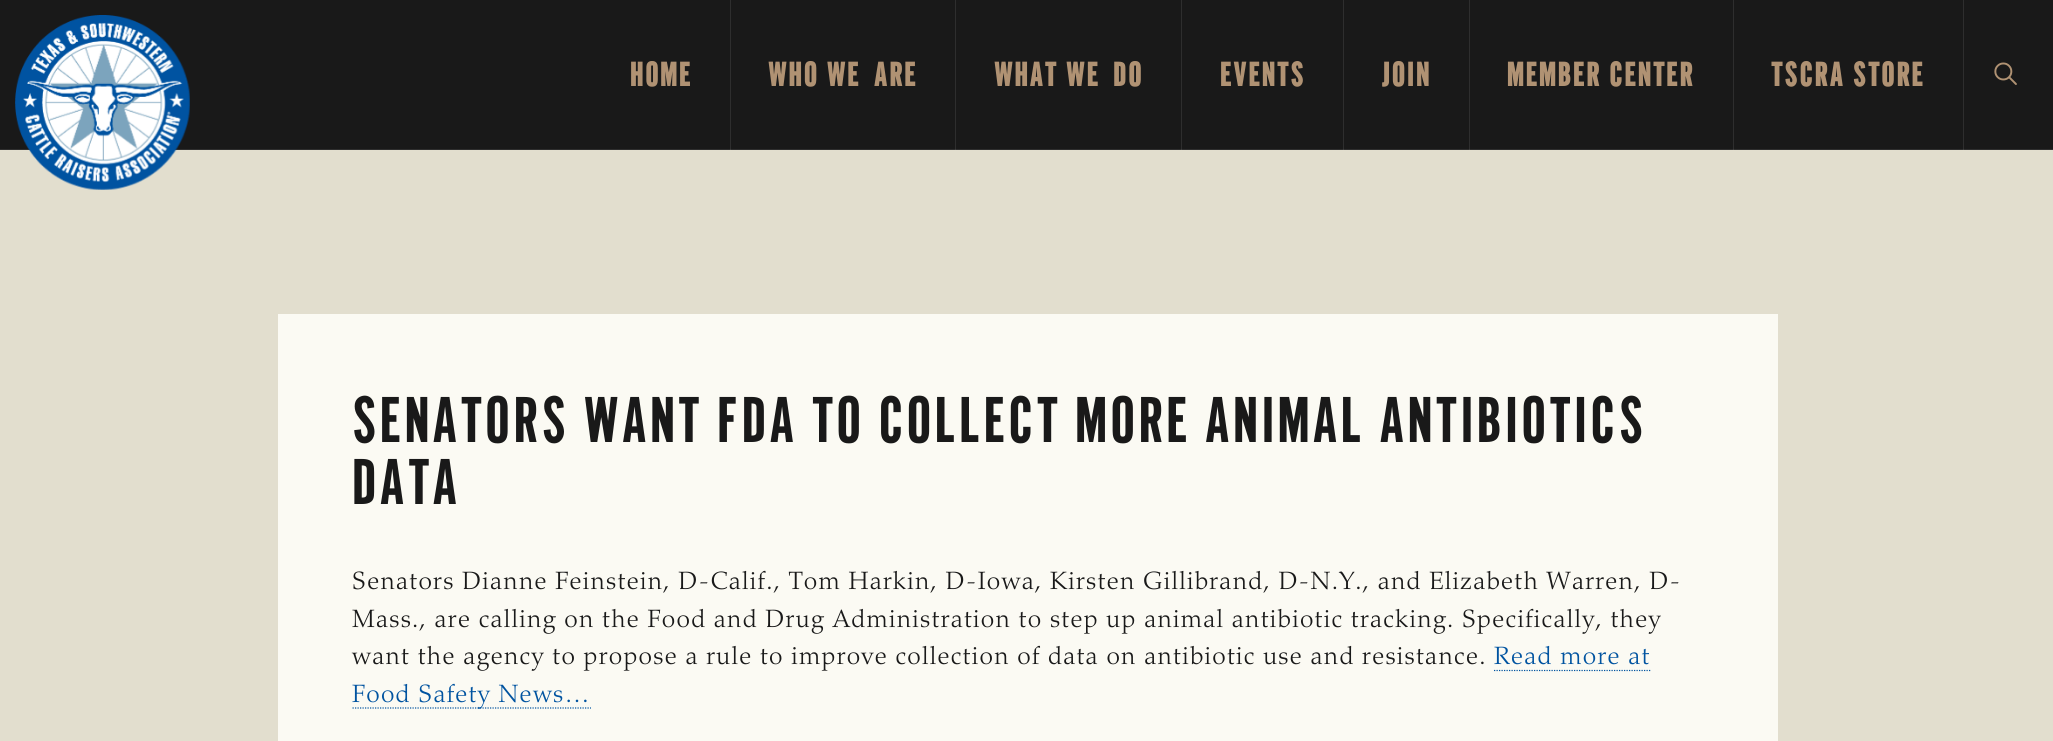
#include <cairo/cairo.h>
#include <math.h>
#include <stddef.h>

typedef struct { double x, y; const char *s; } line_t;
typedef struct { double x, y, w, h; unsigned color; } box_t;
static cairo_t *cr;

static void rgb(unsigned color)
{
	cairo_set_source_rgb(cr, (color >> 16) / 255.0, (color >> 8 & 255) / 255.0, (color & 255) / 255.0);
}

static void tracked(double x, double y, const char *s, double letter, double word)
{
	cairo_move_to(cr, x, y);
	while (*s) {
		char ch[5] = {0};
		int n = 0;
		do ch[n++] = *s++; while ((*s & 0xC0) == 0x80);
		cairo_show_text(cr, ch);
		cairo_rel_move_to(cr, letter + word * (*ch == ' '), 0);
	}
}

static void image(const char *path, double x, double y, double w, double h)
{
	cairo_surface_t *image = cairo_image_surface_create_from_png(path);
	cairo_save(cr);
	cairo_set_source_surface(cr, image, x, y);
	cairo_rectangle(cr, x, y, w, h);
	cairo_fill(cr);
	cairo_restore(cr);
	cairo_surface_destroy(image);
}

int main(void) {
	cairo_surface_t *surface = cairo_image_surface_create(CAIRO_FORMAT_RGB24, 2053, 741);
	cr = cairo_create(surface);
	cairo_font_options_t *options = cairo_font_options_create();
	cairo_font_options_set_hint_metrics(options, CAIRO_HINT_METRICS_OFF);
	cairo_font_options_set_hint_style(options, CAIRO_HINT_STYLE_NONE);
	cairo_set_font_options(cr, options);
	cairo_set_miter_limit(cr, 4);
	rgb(0xe2dece);
	cairo_paint(cr);
	{
		static const box_t items[] = {
			{0, 0, 2053, 149, 0x191919},
			{1963, 0, 1, 150, 0x2e2e2e},
			{1733, 0, 1, 150, 0x2e2e2e},
			{1469, 0, 1, 150, 0x2e2e2e},
			{1343, 0, 1, 150, 0x2e2e2e},
			{1181, 0, 1, 150, 0x2e2e2e},
			{955, 0, 1, 150, 0x2e2e2e},
			{730, 0, 1, 150, 0x2e2e2e},
			{0, 149, 2053, 1, 0x2e2e2e},
			{1963, 149, 1, 1, 0x414141},
			{1733, 149, 1, 1, 0x414141},
			{1469, 149, 1, 1, 0x414141},
			{1343, 149, 1, 1, 0x414141},
			{1181, 149, 1, 1, 0x414141},
			{955, 149, 1, 1, 0x414141},
			{730, 149, 1, 1, 0x414141},
		};
		for (size_t i = 0; i < sizeof items / sizeof *items; i++) {
			rgb(items[i].color);
			cairo_rectangle(cr, items[i].x, items[i].y, items[i].w, items[i].h);
			cairo_fill(cr);
		}
	}
	image("img/1.png", 15, 15, 175, 175);
	image("img/2.png", 1994, 62, 23, 23);
	rgb(0xfbfaf3);
	cairo_rectangle(cr, 278, 314, 1500, 427);
	cairo_fill(cr);
	cairo_new_path(cr);
	cairo_move_to(cr, 1494, 670.5);
	cairo_line_to(cr, 1651, 670.5);
	rgb(0x0053a0);
	cairo_set_line_width(cr, 1.2);
	cairo_set_dash(cr, (double[]){1.25, 1.25}, 2, 0);
	cairo_stroke(cr);
	cairo_new_path(cr);
	cairo_move_to(cr, 352.5, 708);
	cairo_line_to(cr, 591, 708);
	cairo_stroke(cr);
	cairo_select_font_face(cr, "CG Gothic", CAIRO_FONT_SLANT_NORMAL, CAIRO_FONT_WEIGHT_BOLD);
	cairo_set_font_size(cr, 32.5);
	rgb(0xb09273);
	{
		static const line_t items[] = {
			{630, 86, "HOME"},
			{768, 86, "WHO WE"},
			{874, 86, "ARE"},
			{994, 86, "WHAT WE"},
			{1113, 86, "DO"},
			{1220, 86, "EVENTS"},
			{1382, 86, "JOIN"},
			{1507, 86, "MEMBER CENTER"},
			{1771, 86, "TSCRA STORE"},
		};
		for (size_t i = 0; i < sizeof items / sizeof *items; i++) {
			tracked(items[i].x, items[i].y, items[i].s, 2.5, 0);
		}
	}
	cairo_select_font_face(cr, "CG Gothic", CAIRO_FONT_SLANT_NORMAL, CAIRO_FONT_WEIGHT_NORMAL);
	cairo_set_font_size(cr, 62.5);
	rgb(0x191919);
	tracked(352, 442, "SENATORS WANT FDA TO COLLECT MORE ANIMAL ANTIBIOTICS", 3.75, 0);
	tracked(352, 504, "DATA", 3.75, 0);
	cairo_select_font_face(cr, "Palatino Light", CAIRO_FONT_SLANT_NORMAL, CAIRO_FONT_WEIGHT_NORMAL);
	cairo_set_font_size(cr, 25);
	{
		static const line_t items[] = {
			{352, 589, "Senators Dianne Feinstein, D-Calif., Tom Harkin, D-Iowa, Kirsten Gillibrand, D-N.Y., and Elizabeth Warren, D-"},
			{352, 627, "Mass., are calling on the Food and Drug Administration to step up animal antibiotic tracking. Specifically, they"},
			{352, 664, "want the agency to propose a rule to improve collection of data on antibiotic use and resistance."},
		};
		for (size_t i = 0; i < sizeof items / sizeof *items; i++) {
			tracked(items[i].x, items[i].y, items[i].s, 1.25, 0);
		}
	}
	rgb(0x0053a0);
	tracked(1494, 664, "Read more at", 1.25, 0);
	tracked(352, 702, "Food Safety News…", 1.25, 0);
	cairo_surface_write_to_png(surface, "page.png");
	cairo_font_options_destroy(options);
	cairo_destroy(cr);
	cairo_surface_destroy(surface);
	return 0;
}
